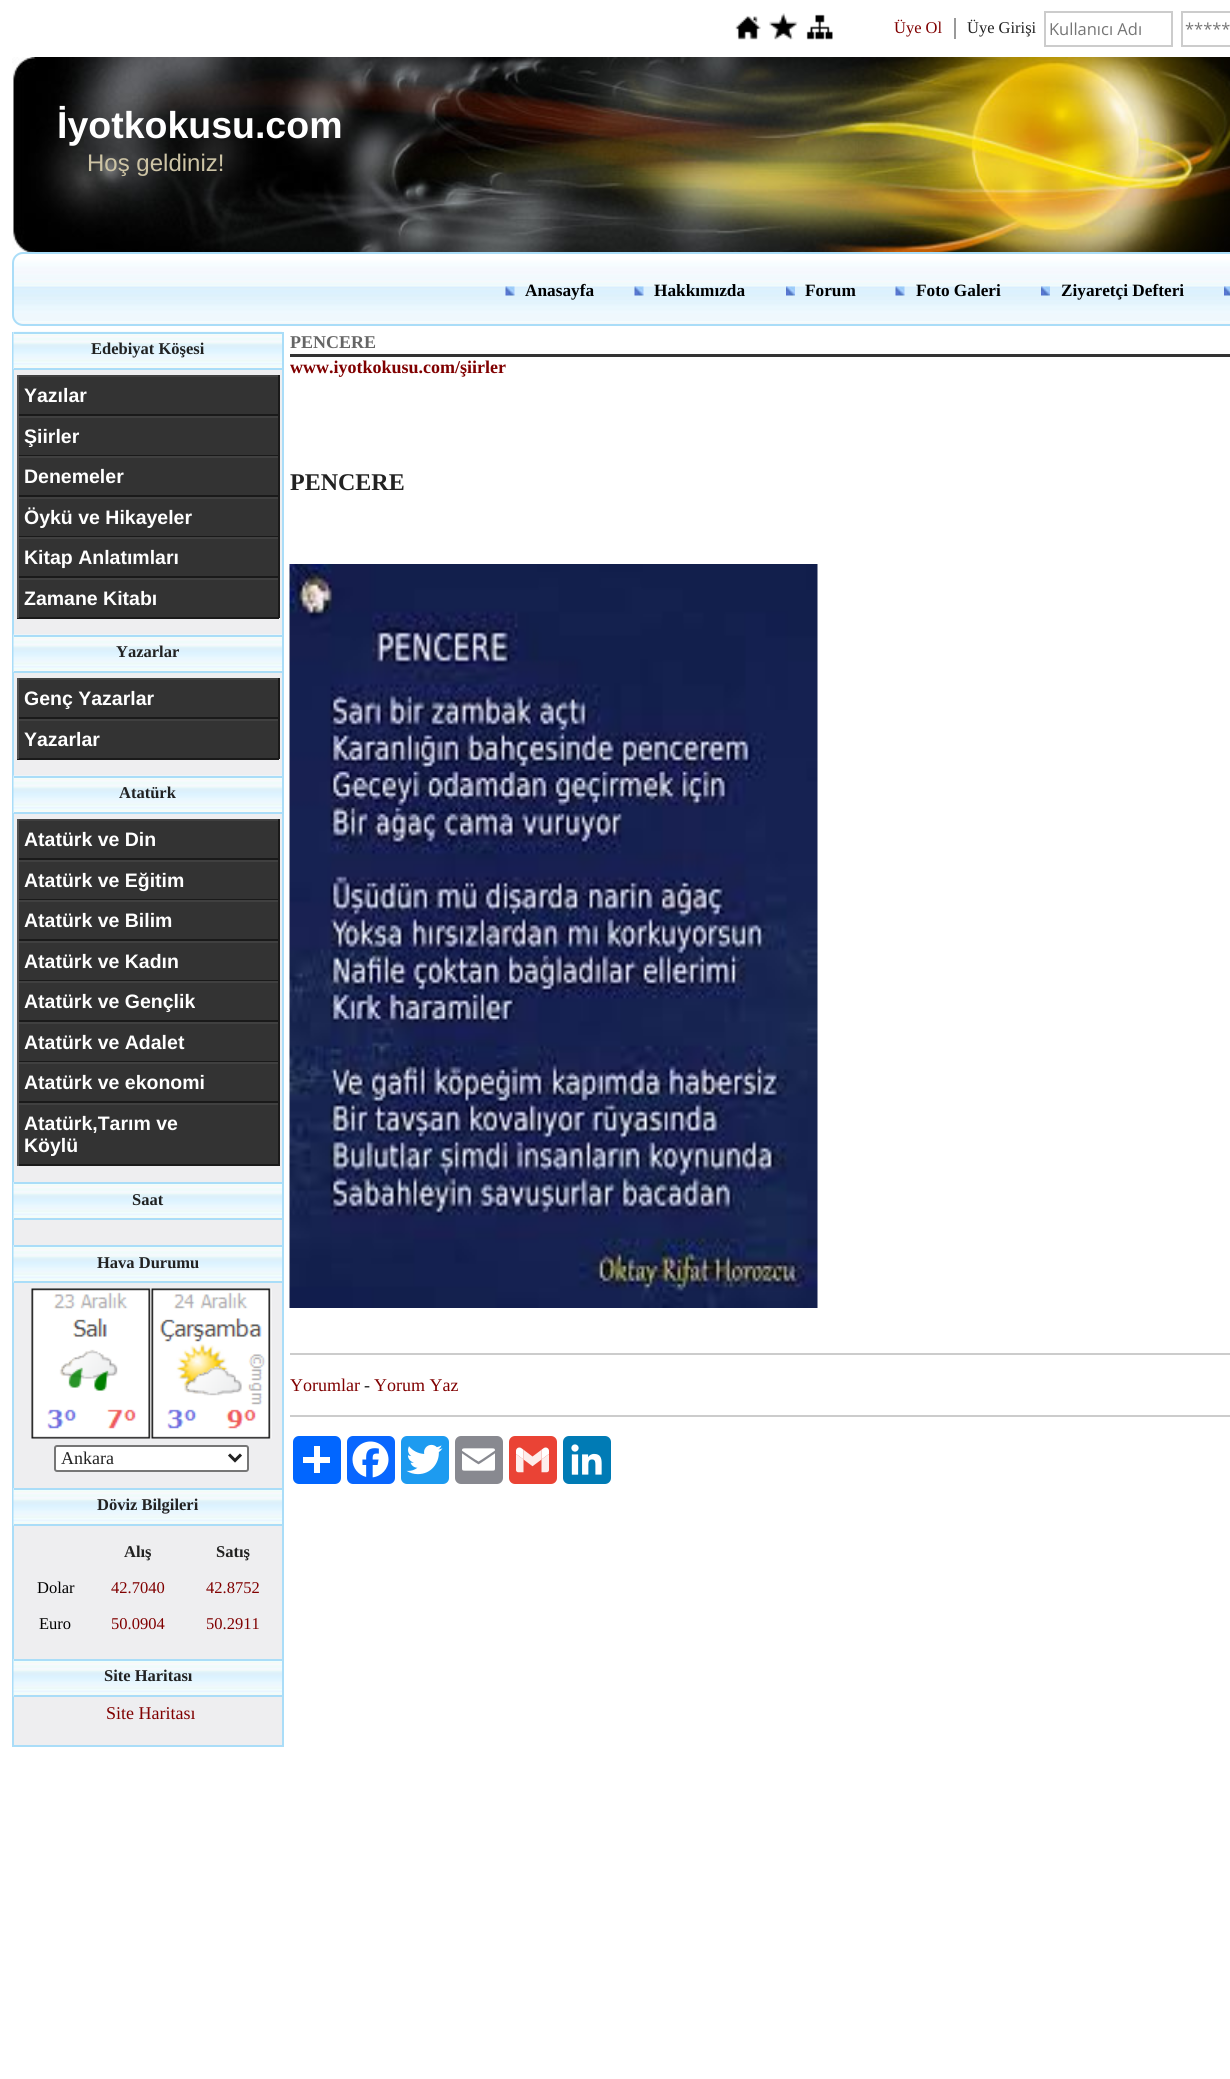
#include <cairo/cairo.h>
#include <math.h>
#include <stddef.h>

typedef struct { double x, y; const char *s; } line_t;
typedef struct { double x, y, w, h; unsigned color; } box_t;
static cairo_t *cr;

static void rgb(unsigned color)
{
	cairo_set_source_rgb(cr, (color >> 16) / 255.0, (color >> 8 & 255) / 255.0, (color & 255) / 255.0);
}

static void rrect(double x, double y, double w, double h, double r)
{
	cairo_new_sub_path(cr);
	cairo_arc(cr, x + w - r, y + h - r, r, 0, M_PI / 2);
	cairo_arc(cr, x + r, y + h - r, r, M_PI / 2, M_PI);
	cairo_arc(cr, x + r, y + r, r, M_PI, 1.5 * M_PI);
	cairo_arc(cr, x + w - r, y + r, r, 1.5 * M_PI, 2 * M_PI);
	cairo_close_path(cr);
}

static void image(const char *path, double x, double y, double w, double h)
{
	cairo_surface_t *image = cairo_image_surface_create_from_png(path);
	cairo_save(cr);
	cairo_set_source_surface(cr, image, x, y);
	cairo_rectangle(cr, x, y, w, h);
	cairo_fill(cr);
	cairo_restore(cr);
	cairo_surface_destroy(image);
}

int main(void) {
	cairo_surface_t *surface = cairo_image_surface_create(CAIRO_FORMAT_RGB24, 1230, 2079);
	cr = cairo_create(surface);
	cairo_font_options_t *options = cairo_font_options_create();
	cairo_font_options_set_hint_metrics(options, CAIRO_HINT_METRICS_OFF);
	cairo_font_options_set_hint_style(options, CAIRO_HINT_STYLE_NONE);
	cairo_set_font_options(cr, options);
	cairo_set_miter_limit(cr, 4);
	rgb(0xffffff);
	cairo_paint(cr);
	image("img/1.png", 735, 15, 26, 25);
	image("img/2.png", 769, 13, 29, 27);
	image("img/3.png", 806, 14, 27, 26);
	rgb(0x999999);
	cairo_rectangle(cr, 954, 18, 2, 21);
	cairo_fill(cr);
	cairo_rectangle(cr, 1045, 12, 127, 34);
	rgb(0xcccccc);
	cairo_stroke(cr);
	cairo_rectangle(cr, 1182, 12, 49, 34);
	cairo_stroke(cr);
	image("img/4.png", 12, 57, 1218, 195);
	image("img/5.png", 12, 252, 1218, 73);
	rrect(13, 253, 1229, 72, 10);
	rgb(0xaaddf8);
	cairo_stroke(cr);
	image("img/6.png", 505, 286, 10, 10);
	image("img/7.png", 634, 286, 10, 10);
	image("img/8.png", 786, 286, 9, 10);
	image("img/6.png", 895, 286, 10, 10);
	image("img/9.png", 1041, 286, 9, 10);
	image("img/10.png", 1224, 286, 6, 10);
	{
		static const box_t items[] = {
			{282, 332, 2, 1414, 0xaaddf8},
			{12, 1745, 272, 2, 0xaaddf8},
			{12, 332, 2, 1414, 0xaaddf8},
			{14, 370, 268, 1375, 0xeeeef0},
		};
		for (size_t i = 0; i < sizeof items / sizeof *items; i++) {
			rgb(items[i].color);
			cairo_rectangle(cr, items[i].x, items[i].y, items[i].w, items[i].h);
			cairo_fill(cr);
		}
	}
	image("img/11.png", 13, 331, 269, 38);
	{
		static const box_t items[] = {
			{14, 332, 268, 2, 0xaaddf8},
			{14, 368, 268, 2, 0xaaddf8},
			{19, 377, 259, 37, 0x333333},
			{17, 375, 262, 2, 0x404040},
			{278, 375, 2, 41, 0x1a1a1a},
			{17, 414, 262, 2, 0x1a1a1a},
			{17, 375, 2, 41, 0x505050},
			{19, 418, 259, 37, 0x333333},
			{17, 416, 262, 2, 0x404040},
			{278, 416, 2, 40, 0x1a1a1a},
			{17, 455, 262, 1, 0x1a1a1a},
			{17, 416, 2, 40, 0x505050},
			{19, 458, 259, 37, 0x333333},
			{17, 456, 262, 2, 0x404040},
			{278, 456, 2, 41, 0x1a1a1a},
			{17, 495, 262, 2, 0x1a1a1a},
			{17, 456, 2, 41, 0x505050},
			{19, 499, 259, 37, 0x333333},
			{17, 497, 262, 2, 0x404040},
			{278, 497, 2, 40, 0x1a1a1a},
			{17, 536, 262, 1, 0x1a1a1a},
			{17, 497, 2, 40, 0x505050},
			{19, 539, 259, 37, 0x333333},
			{17, 537, 262, 2, 0x404040},
			{278, 537, 2, 41, 0x1a1a1a},
			{17, 576, 262, 2, 0x1a1a1a},
			{17, 537, 2, 41, 0x505050},
			{19, 580, 259, 37, 0x333333},
			{17, 578, 262, 2, 0x404040},
			{278, 578, 2, 40, 0x1a1a1a},
			{17, 617, 262, 2, 0x1a1a1a},
			{17, 578, 2, 40, 0x505050},
		};
		for (size_t i = 0; i < sizeof items / sizeof *items; i++) {
			rgb(items[i].color);
			cairo_rectangle(cr, items[i].x, items[i].y, items[i].w, items[i].h);
			cairo_fill(cr);
		}
	}
	image("img/12.png", 13, 634, 269, 38);
	{
		static const box_t items[] = {
			{14, 635, 268, 2, 0xaaddf8},
			{14, 671, 268, 2, 0xaaddf8},
			{19, 680, 259, 37, 0x333333},
			{17, 678, 262, 2, 0x404040},
			{278, 678, 2, 41, 0x1a1a1a},
			{17, 717, 262, 2, 0x1a1a1a},
			{17, 678, 2, 41, 0x505050},
			{19, 721, 259, 37, 0x333333},
			{17, 719, 262, 2, 0x404040},
			{278, 719, 2, 40, 0x1a1a1a},
			{17, 758, 262, 2, 0x1a1a1a},
			{17, 719, 2, 40, 0x505050},
		};
		for (size_t i = 0; i < sizeof items / sizeof *items; i++) {
			rgb(items[i].color);
			cairo_rectangle(cr, items[i].x, items[i].y, items[i].w, items[i].h);
			cairo_fill(cr);
		}
	}
	image("img/12.png", 13, 775, 269, 38);
	{
		static const box_t items[] = {
			{14, 776, 268, 2, 0xaaddf8},
			{14, 812, 268, 2, 0xaaddf8},
			{19, 821, 259, 37, 0x333333},
			{17, 819, 262, 2, 0x404040},
			{278, 819, 2, 41, 0x1a1a1a},
			{17, 858, 262, 2, 0x1a1a1a},
			{17, 819, 2, 41, 0x505050},
			{19, 862, 259, 37, 0x333333},
			{17, 860, 262, 2, 0x404040},
			{278, 860, 2, 40, 0x1a1a1a},
			{17, 899, 262, 1, 0x1a1a1a},
			{17, 860, 2, 40, 0x505050},
			{19, 902, 259, 37, 0x333333},
			{17, 900, 262, 2, 0x404040},
			{278, 900, 2, 41, 0x1a1a1a},
			{17, 939, 262, 2, 0x1a1a1a},
			{17, 900, 2, 41, 0x505050},
			{19, 943, 259, 37, 0x333333},
			{17, 941, 262, 2, 0x404040},
			{278, 941, 2, 40, 0x1a1a1a},
			{17, 980, 262, 1, 0x1a1a1a},
			{17, 941, 2, 40, 0x505050},
			{19, 983, 259, 37, 0x333333},
			{17, 981, 262, 2, 0x404040},
			{278, 981, 2, 41, 0x1a1a1a},
			{17, 1020, 262, 2, 0x1a1a1a},
			{17, 981, 2, 41, 0x505050},
			{19, 1024, 259, 37, 0x333333},
			{17, 1022, 262, 2, 0x404040},
			{278, 1022, 2, 40, 0x1a1a1a},
			{17, 1061, 262, 1, 0x1a1a1a},
			{17, 1022, 2, 40, 0x505050},
			{19, 1064, 259, 37, 0x333333},
			{17, 1062, 262, 2, 0x404040},
			{278, 1062, 2, 41, 0x1a1a1a},
			{17, 1101, 262, 2, 0x1a1a1a},
			{17, 1062, 2, 41, 0x505050},
			{19, 1105, 259, 59, 0x333333},
			{17, 1103, 262, 2, 0x404040},
			{278, 1103, 2, 63, 0x1a1a1a},
			{17, 1164, 262, 2, 0x1a1a1a},
			{17, 1103, 2, 63, 0x505050},
		};
		for (size_t i = 0; i < sizeof items / sizeof *items; i++) {
			rgb(items[i].color);
			cairo_rectangle(cr, items[i].x, items[i].y, items[i].w, items[i].h);
			cairo_fill(cr);
		}
	}
	image("img/13.png", 13, 1182, 269, 38);
	rgb(0xaaddf8);
	cairo_rectangle(cr, 14, 1182, 268, 2);
	cairo_fill(cr);
	cairo_rectangle(cr, 14, 1218, 268, 2);
	cairo_fill(cr);
	image("img/13.png", 13, 1245, 269, 38);
	cairo_rectangle(cr, 14, 1245, 268, 2);
	cairo_fill(cr);
	cairo_rectangle(cr, 14, 1281, 268, 2);
	cairo_fill(cr);
	image("img/14.png", 31, 1288, 241, 151);
	rgb(0xffffff);
	rrect(55, 1446, 193, 25, 2);
	cairo_fill_preserve(cr);
	rgb(0x767676);
	cairo_stroke(cr);
	cairo_new_path(cr);
	cairo_move_to(cr, 229, 1454.5);
	cairo_line_to(cr, 235, 1460.5);
	cairo_line_to(cr, 241, 1454.5);
	rgb(0x222222);
	cairo_set_line_width(cr, 3);
	cairo_stroke(cr);
	image("img/13.png", 13, 1488, 269, 38);
	rgb(0xaaddf8);
	cairo_rectangle(cr, 14, 1488, 268, 2);
	cairo_fill(cr);
	cairo_rectangle(cr, 14, 1524, 268, 2);
	cairo_fill(cr);
	image("img/13.png", 13, 1659, 269, 38);
	{
		static const box_t items[] = {
			{14, 1659, 268, 2, 0xaaddf8},
			{14, 1695, 268, 2, 0xaaddf8},
			{290, 354, 940, 3, 0x333333},
		};
		for (size_t i = 0; i < sizeof items / sizeof *items; i++) {
			rgb(items[i].color);
			cairo_rectangle(cr, items[i].x, items[i].y, items[i].w, items[i].h);
			cairo_fill(cr);
		}
	}
	image("img/15.png", 289, 564, 529, 744);
	rgb(0xcccccc);
	cairo_rectangle(cr, 290, 1353, 940, 2);
	cairo_fill(cr);
	cairo_rectangle(cr, 290, 1415, 940, 2);
	cairo_fill(cr);
	rgb(0x0166ff);
	rrect(293, 1436, 48, 48, 6);
	cairo_fill(cr);
	rgb(0xffffff);
	cairo_rectangle(cr, 314, 1446, 6, 27);
	cairo_fill(cr);
	cairo_rectangle(cr, 303, 1457, 27, 6);
	cairo_fill(cr);
	rgb(0x0866ff);
	rrect(347, 1436, 48, 48, 6);
	cairo_fill(cr);
	image("img/16.png", 352, 1441, 37, 37);
	rgb(0x1d9bf0);
	rrect(401, 1436, 48, 48, 6);
	cairo_fill(cr);
	image("img/17.png", 406, 1444, 37, 31);
	rgb(0x888990);
	rrect(455, 1436, 48, 48, 6);
	cairo_fill(cr);
	image("img/18.png", 462, 1448, 33, 23);
	rgb(0xea4335);
	rrect(509, 1436, 48, 48, 6);
	cairo_fill(cr);
	image("img/19.png", 516, 1447, 33, 26);
	rgb(0x007bb5);
	rrect(563, 1436, 48, 48, 6);
	cairo_fill(cr);
	image("img/20.png", 571, 1444, 31, 31);
	cairo_select_font_face(cr, "Liberation Serif", CAIRO_FONT_SLANT_NORMAL, CAIRO_FONT_WEIGHT_NORMAL);
	cairo_set_font_size(cr, 16.5);
	rgb(0x800000);
	cairo_move_to(cr, 894, 33);
	cairo_show_text(cr, "Üye Ol");
	rgb(0x222222);
	cairo_move_to(cr, 967, 33);
	cairo_show_text(cr, "Üye Girişi");
	cairo_select_font_face(cr, "Open Sans", CAIRO_FONT_SLANT_NORMAL, CAIRO_FONT_WEIGHT_NORMAL);
	rgb(0x757575);
	cairo_move_to(cr, 1049, 35);
	cairo_show_text(cr, "Kullanıcı Adı");
	cairo_move_to(cr, 1185, 35);
	cairo_show_text(cr, "*****");
	cairo_select_font_face(cr, "Liberation Sans", CAIRO_FONT_SLANT_NORMAL, CAIRO_FONT_WEIGHT_BOLD);
	cairo_set_font_size(cr, 37.5);
	rgb(0xffffff);
	cairo_move_to(cr, 57, 138);
	cairo_show_text(cr, "İyotkokusu.com");
	cairo_select_font_face(cr, "Liberation Sans", CAIRO_FONT_SLANT_NORMAL, CAIRO_FONT_WEIGHT_NORMAL);
	cairo_set_font_size(cr, 24);
	rgb(0xcdc4a5);
	cairo_move_to(cr, 87, 171);
	cairo_show_text(cr, "Hoş geldiniz!");
	cairo_select_font_face(cr, "Liberation Serif", CAIRO_FONT_SLANT_NORMAL, CAIRO_FONT_WEIGHT_BOLD);
	cairo_set_font_size(cr, 17.25);
	rgb(0x000000);
	{
		static const line_t items[] = {
			{525, 296, "Anasayfa"},
			{654, 296, "Hakkımızda"},
			{805, 296, "Forum"},
			{916, 296, "Foto Galeri"},
			{1061, 296, "Ziyaretçi Defteri"},
		};
		for (size_t i = 0; i < sizeof items / sizeof *items; i++) {
			cairo_move_to(cr, items[i].x, items[i].y);
			cairo_show_text(cr, items[i].s);
		}
	}
	cairo_set_font_size(cr, 16.5);
	rgb(0x222222);
	cairo_move_to(cr, 91, 354);
	cairo_show_text(cr, "Edebiyat Köşesi");
	cairo_select_font_face(cr, "Liberation Sans", CAIRO_FONT_SLANT_NORMAL, CAIRO_FONT_WEIGHT_BOLD);
	cairo_set_font_size(cr, 19.5);
	rgb(0xffffff);
	{
		static const line_t items[] = {
			{24, 402, "Yazılar"},
			{24, 443, "Şiirler"},
			{24, 483, "Denemeler"},
			{24, 524, "Öykü ve Hikayeler"},
			{24, 564, "Kitap Anlatımları"},
			{24, 605, "Zamane Kitabı"},
		};
		for (size_t i = 0; i < sizeof items / sizeof *items; i++) {
			cairo_move_to(cr, items[i].x, items[i].y);
			cairo_show_text(cr, items[i].s);
		}
	}
	cairo_select_font_face(cr, "Liberation Serif", CAIRO_FONT_SLANT_NORMAL, CAIRO_FONT_WEIGHT_BOLD);
	cairo_set_font_size(cr, 16.5);
	rgb(0x222222);
	cairo_move_to(cr, 116, 657);
	cairo_show_text(cr, "Yazarlar");
	cairo_select_font_face(cr, "Liberation Sans", CAIRO_FONT_SLANT_NORMAL, CAIRO_FONT_WEIGHT_BOLD);
	cairo_set_font_size(cr, 19.5);
	rgb(0xffffff);
	cairo_move_to(cr, 24, 705);
	cairo_show_text(cr, "Genç Yazarlar");
	cairo_move_to(cr, 24, 746);
	cairo_show_text(cr, "Yazarlar");
	cairo_select_font_face(cr, "Liberation Serif", CAIRO_FONT_SLANT_NORMAL, CAIRO_FONT_WEIGHT_BOLD);
	cairo_set_font_size(cr, 16.5);
	rgb(0x222222);
	cairo_move_to(cr, 119, 798);
	cairo_show_text(cr, "Atatürk");
	cairo_select_font_face(cr, "Liberation Sans", CAIRO_FONT_SLANT_NORMAL, CAIRO_FONT_WEIGHT_BOLD);
	cairo_set_font_size(cr, 19.5);
	rgb(0xffffff);
	{
		static const line_t items[] = {
			{24, 846, "Atatürk ve Din"},
			{24, 887, "Atatürk ve Eğitim"},
			{24, 927, "Atatürk ve Bilim"},
			{24, 968, "Atatürk ve Kadın"},
			{24, 1008, "Atatürk ve Gençlik"},
			{24, 1049, "Atatürk ve Adalet"},
			{24, 1089, "Atatürk ve ekonomi"},
			{24, 1130, "Atatürk,Tarım ve"},
			{24, 1152, "Köylü"},
		};
		for (size_t i = 0; i < sizeof items / sizeof *items; i++) {
			cairo_move_to(cr, items[i].x, items[i].y);
			cairo_show_text(cr, items[i].s);
		}
	}
	cairo_select_font_face(cr, "Liberation Serif", CAIRO_FONT_SLANT_NORMAL, CAIRO_FONT_WEIGHT_BOLD);
	cairo_set_font_size(cr, 16.5);
	rgb(0x222222);
	cairo_move_to(cr, 132, 1205);
	cairo_show_text(cr, "Saat");
	cairo_move_to(cr, 97, 1268);
	cairo_show_text(cr, "Hava Durumu");
	cairo_select_font_face(cr, "Liberation Serif", CAIRO_FONT_SLANT_NORMAL, CAIRO_FONT_WEIGHT_NORMAL);
	cairo_set_font_size(cr, 18);
	cairo_move_to(cr, 61, 1464);
	cairo_show_text(cr, "Ankara");
	cairo_select_font_face(cr, "Liberation Serif", CAIRO_FONT_SLANT_NORMAL, CAIRO_FONT_WEIGHT_BOLD);
	cairo_set_font_size(cr, 16.5);
	{
		static const line_t items[] = {
			{97, 1510, "Döviz Bilgileri"},
			{124, 1557, "Alış"},
			{216, 1557, "Satış"},
		};
		for (size_t i = 0; i < sizeof items / sizeof *items; i++) {
			cairo_move_to(cr, items[i].x, items[i].y);
			cairo_show_text(cr, items[i].s);
		}
	}
	cairo_select_font_face(cr, "Liberation Serif", CAIRO_FONT_SLANT_NORMAL, CAIRO_FONT_WEIGHT_NORMAL);
	rgb(0x000000);
	cairo_move_to(cr, 37, 1593);
	cairo_show_text(cr, "Dolar");
	rgb(0x800000);
	cairo_move_to(cr, 111, 1593);
	cairo_show_text(cr, "42.7040");
	cairo_move_to(cr, 206, 1593);
	cairo_show_text(cr, "42.8752");
	rgb(0x000000);
	cairo_move_to(cr, 39, 1629);
	cairo_show_text(cr, "Euro");
	rgb(0x800000);
	cairo_move_to(cr, 111, 1629);
	cairo_show_text(cr, "50.0904");
	cairo_move_to(cr, 206, 1629);
	cairo_show_text(cr, "50.2911");
	cairo_select_font_face(cr, "Liberation Serif", CAIRO_FONT_SLANT_NORMAL, CAIRO_FONT_WEIGHT_BOLD);
	rgb(0x222222);
	cairo_move_to(cr, 104, 1681);
	cairo_show_text(cr, "Site Haritası");
	cairo_select_font_face(cr, "Liberation Serif", CAIRO_FONT_SLANT_NORMAL, CAIRO_FONT_WEIGHT_NORMAL);
	cairo_set_font_size(cr, 18);
	rgb(0x800000);
	cairo_move_to(cr, 106, 1719);
	cairo_show_text(cr, "Site Haritası");
	cairo_select_font_face(cr, "Liberation Serif", CAIRO_FONT_SLANT_NORMAL, CAIRO_FONT_WEIGHT_BOLD);
	rgb(0x666666);
	cairo_move_to(cr, 290, 348);
	cairo_show_text(cr, "PENCERE");
	rgb(0x800000);
	cairo_move_to(cr, 290, 373);
	cairo_show_text(cr, "www.iyotkokusu.com/şiirler");
	cairo_set_font_size(cr, 24);
	rgb(0x222222);
	cairo_move_to(cr, 290, 490);
	cairo_show_text(cr, "PENCERE");
	cairo_select_font_face(cr, "Liberation Serif", CAIRO_FONT_SLANT_NORMAL, CAIRO_FONT_WEIGHT_NORMAL);
	cairo_set_font_size(cr, 18);
	rgb(0x800000);
	cairo_move_to(cr, 290, 1391);
	cairo_show_text(cr, "Yorumlar");
	rgb(0x222222);
	cairo_move_to(cr, 364, 1391);
	cairo_show_text(cr, "-");
	rgb(0x800000);
	cairo_move_to(cr, 374, 1391);
	cairo_show_text(cr, "Yorum Yaz");
	cairo_surface_write_to_png(surface, "page.png");
	cairo_font_options_destroy(options);
	cairo_destroy(cr);
	cairo_surface_destroy(surface);
	return 0;
}
